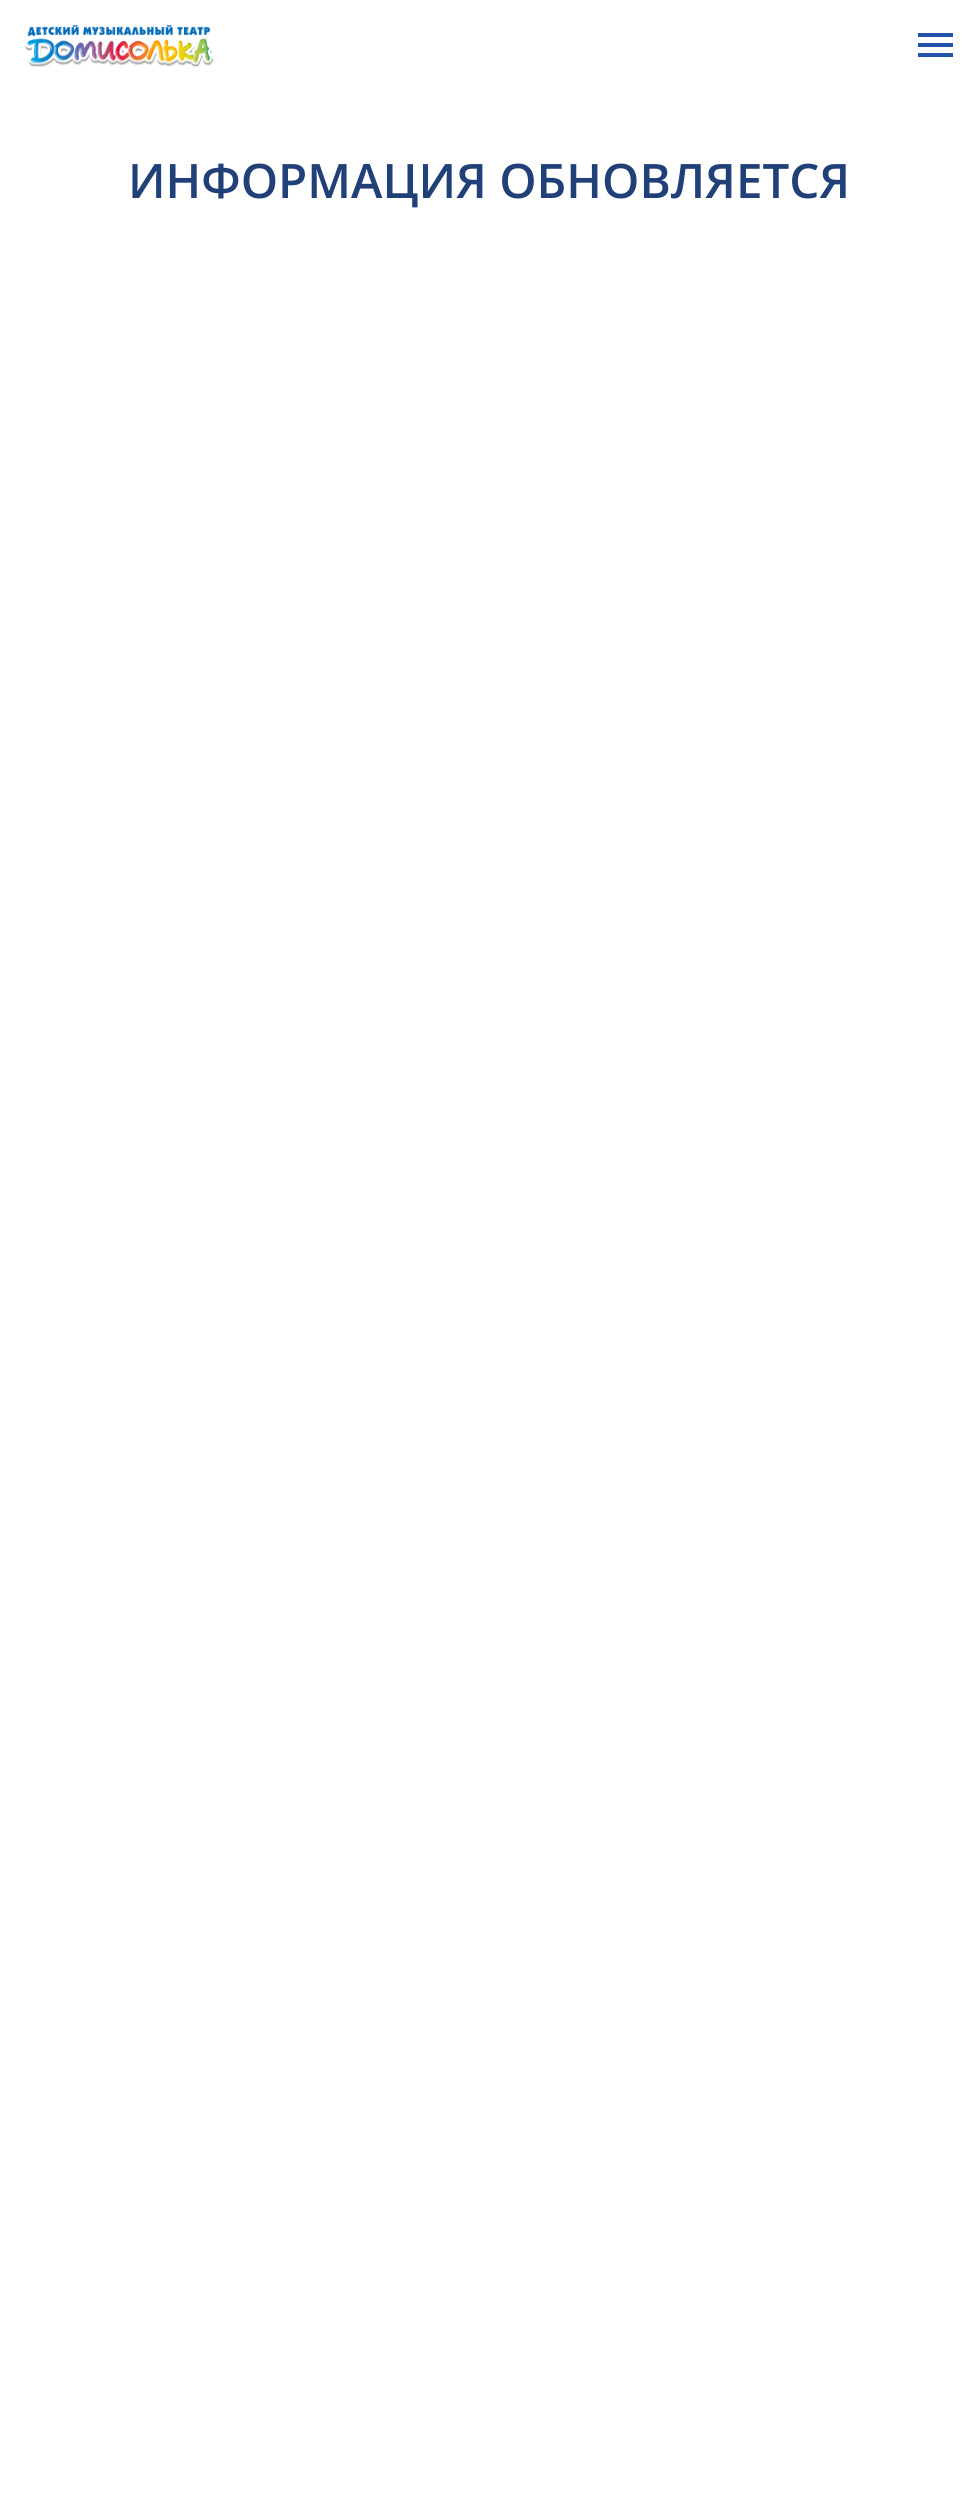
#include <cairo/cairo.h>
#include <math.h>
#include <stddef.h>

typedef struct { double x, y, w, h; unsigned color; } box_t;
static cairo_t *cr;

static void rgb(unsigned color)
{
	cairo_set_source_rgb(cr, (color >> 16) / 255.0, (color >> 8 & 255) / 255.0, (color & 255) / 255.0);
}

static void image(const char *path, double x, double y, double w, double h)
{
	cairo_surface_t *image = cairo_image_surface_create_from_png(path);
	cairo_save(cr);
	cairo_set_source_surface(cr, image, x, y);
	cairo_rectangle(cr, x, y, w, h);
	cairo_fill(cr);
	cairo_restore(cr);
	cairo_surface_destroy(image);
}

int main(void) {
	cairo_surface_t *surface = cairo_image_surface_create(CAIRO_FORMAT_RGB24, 977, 2519);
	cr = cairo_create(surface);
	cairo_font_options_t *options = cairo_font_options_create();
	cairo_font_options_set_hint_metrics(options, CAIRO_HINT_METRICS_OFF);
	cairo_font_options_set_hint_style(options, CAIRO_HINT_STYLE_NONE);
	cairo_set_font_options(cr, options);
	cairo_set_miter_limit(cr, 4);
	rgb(0xffffff);
	cairo_paint(cr);
	image("img/1.png", 25, 25, 188, 42);
	{
		static const box_t items[] = {
			{918, 33, 35, 4, 0x2452a8},
			{918, 43, 35, 4, 0x2452a8},
			{918, 53, 35, 4, 0x2452a8},
		};
		for (size_t i = 0; i < sizeof items / sizeof *items; i++) {
			rgb(items[i].color);
			cairo_rectangle(cr, items[i].x, items[i].y, items[i].w, items[i].h);
			cairo_fill(cr);
		}
	}
	cairo_select_font_face(cr, "Open Sans SemiBold", CAIRO_FONT_SLANT_NORMAL, CAIRO_FONT_WEIGHT_NORMAL);
	cairo_set_font_size(cr, 47.5);
	rgb(0x214078);
	cairo_move_to(cr, 128, 198);
	cairo_show_text(cr, "ИНФОРМАЦИЯ ОБНОВЛЯЕТСЯ");
	cairo_surface_write_to_png(surface, "page.png");
	cairo_font_options_destroy(options);
	cairo_destroy(cr);
	cairo_surface_destroy(surface);
	return 0;
}
